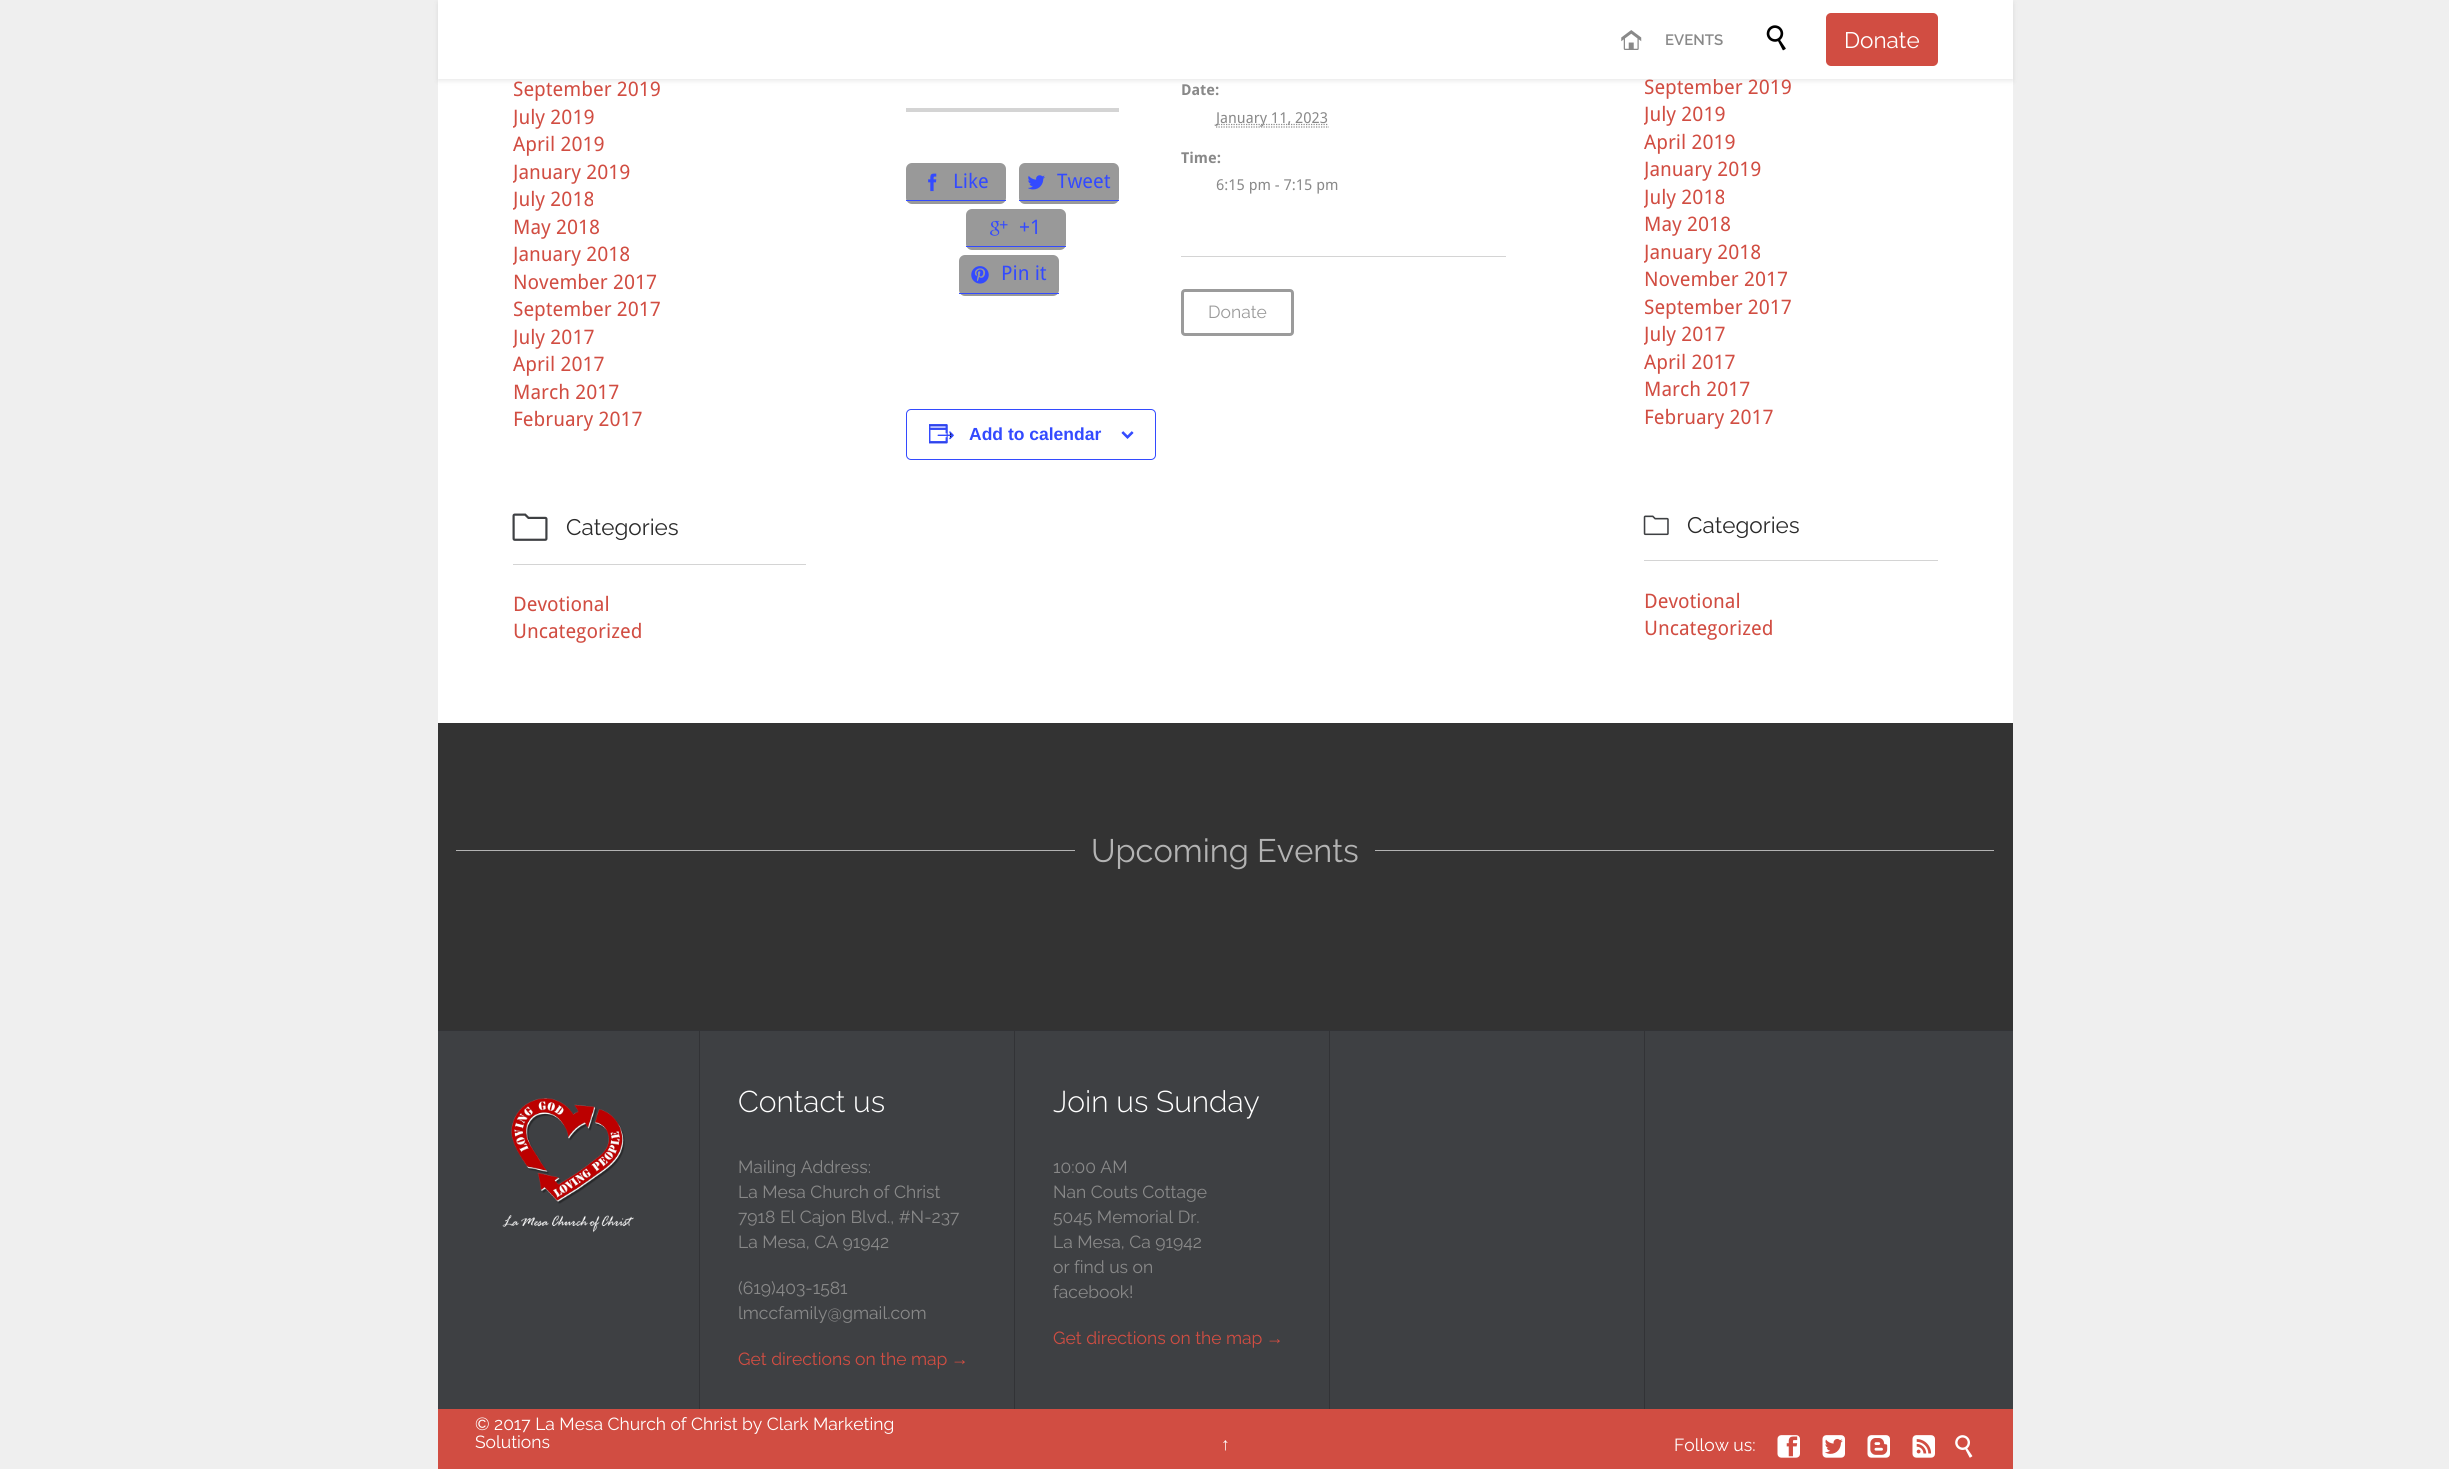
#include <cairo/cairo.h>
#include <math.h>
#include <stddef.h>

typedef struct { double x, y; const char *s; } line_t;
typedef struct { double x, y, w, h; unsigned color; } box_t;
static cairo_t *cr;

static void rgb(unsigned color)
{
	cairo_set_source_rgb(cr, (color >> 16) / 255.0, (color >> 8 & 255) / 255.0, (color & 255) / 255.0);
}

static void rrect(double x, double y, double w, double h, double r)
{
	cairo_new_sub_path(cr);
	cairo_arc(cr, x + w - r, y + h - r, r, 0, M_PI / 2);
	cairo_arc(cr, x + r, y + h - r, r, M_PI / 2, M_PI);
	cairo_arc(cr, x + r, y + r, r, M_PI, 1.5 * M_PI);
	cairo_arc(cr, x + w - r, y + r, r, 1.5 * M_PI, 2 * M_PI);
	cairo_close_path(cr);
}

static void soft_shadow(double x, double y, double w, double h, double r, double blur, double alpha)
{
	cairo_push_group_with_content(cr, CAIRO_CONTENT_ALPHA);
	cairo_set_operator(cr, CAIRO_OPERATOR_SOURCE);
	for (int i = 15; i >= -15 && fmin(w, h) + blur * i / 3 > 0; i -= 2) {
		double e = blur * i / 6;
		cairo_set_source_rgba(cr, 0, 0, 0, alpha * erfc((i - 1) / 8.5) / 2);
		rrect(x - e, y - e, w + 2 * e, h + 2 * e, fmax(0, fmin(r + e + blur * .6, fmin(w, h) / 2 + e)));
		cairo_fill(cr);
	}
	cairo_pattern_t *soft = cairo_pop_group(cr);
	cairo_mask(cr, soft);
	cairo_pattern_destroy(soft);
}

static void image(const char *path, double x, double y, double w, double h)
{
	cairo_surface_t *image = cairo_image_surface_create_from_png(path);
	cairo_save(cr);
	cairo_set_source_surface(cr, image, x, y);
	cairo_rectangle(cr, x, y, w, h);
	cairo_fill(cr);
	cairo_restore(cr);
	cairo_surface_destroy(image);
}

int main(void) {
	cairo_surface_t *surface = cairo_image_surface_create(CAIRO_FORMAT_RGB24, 2449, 1469);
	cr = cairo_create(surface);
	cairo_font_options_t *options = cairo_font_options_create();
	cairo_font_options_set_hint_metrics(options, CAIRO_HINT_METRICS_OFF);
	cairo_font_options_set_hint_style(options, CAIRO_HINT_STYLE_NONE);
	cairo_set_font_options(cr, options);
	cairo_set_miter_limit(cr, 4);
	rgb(0xefefef);
	cairo_paint(cr);
	rgb(0xffffff);
	cairo_rectangle(cr, 438, 79, 1575, 644);
	cairo_fill(cr);
	rgb(0x000000);
	soft_shadow(438, 3, 1575, 78, 0, 2.5, 0.09);
	rgb(0xd4d4d4);
	cairo_rectangle(cr, 513, 564, 293, 1);
	cairo_fill(cr);
	image("img/3.png", 512, 513, 36, 28);
	cairo_rectangle(cr, 906, 108, 213, 4);
	cairo_fill(cr);
	rgb(0x999999);
	rrect(906, 163, 100, 41, 6);
	cairo_fill(cr);
	rgb(0x334aff);
	cairo_rectangle(cr, 906, 200, 100, 1);
	cairo_fill(cr);
	image("img/4.png", 928, 173, 9, 19);
	rgb(0x999999);
	rrect(1019, 163, 100, 41, 6);
	cairo_fill(cr);
	rgb(0x334aff);
	cairo_rectangle(cr, 1019, 200, 100, 1);
	cairo_fill(cr);
	image("img/5.png", 1028, 175, 17, 15);
	rgb(0x999999);
	rrect(966, 209, 100, 41, 6);
	cairo_fill(cr);
	rgb(0x334aff);
	cairo_rectangle(cr, 966, 246, 100, 1);
	cairo_fill(cr);
	image("img/6.png", 990, 220, 18, 16);
	rgb(0x999999);
	rrect(959, 255, 100, 41, 6);
	cairo_fill(cr);
	rgb(0x334aff);
	cairo_rectangle(cr, 959, 293, 100, 1);
	cairo_fill(cr);
	image("img/7.png", 971, 266, 18, 18);
	rrect(906.5, 409.5, 249, 50, 4.5);
	cairo_set_line_width(cr, 1);
	cairo_stroke(cr);
	image("img/8.png", 929, 424, 25, 20);
	image("img/9.png", 1121, 431, 13, 8);
	cairo_new_path(cr);
	cairo_move_to(cr, 1216, 127);
	cairo_line_to(cr, 1329, 127);
	rgb(0x898989);
	cairo_set_line_width(cr, 1.2);
	cairo_set_dash(cr, (double[]){1.25, 1.25}, 2, 0);
	cairo_stroke(cr);
	cairo_new_path(cr);
	cairo_move_to(cr, 1216, 124.5);
	cairo_line_to(cr, 1328.5, 124.5);
	cairo_stroke(cr);
	rgb(0xd4d4d4);
	cairo_rectangle(cr, 1181, 256, 325, 1);
	cairo_fill(cr);
	rrect(1182.5, 290.5, 110, 44, 2.5);
	rgb(0x9b9b9b);
	cairo_set_line_width(cr, 3);
	cairo_set_dash(cr, NULL, 0, 0);
	cairo_stroke(cr);
	rgb(0xd4d4d4);
	cairo_rectangle(cr, 1644, 560, 294, 1);
	cairo_fill(cr);
	image("img/10.png", 1643, 515, 26, 21);
	{
		static const box_t items[] = {
			{438, 723, 1575, 307, 0x333333},
			{456, 850, 619, 1, 0xb3b3b3},
			{1375, 850, 619, 1, 0xb3b3b3},
			{438, 1031, 1575, 378, 0x3e4043},
			{438, 1030, 1575, 1, 0x323336},
			{699, 1031, 1, 378, 0x323336},
		};
		for (size_t i = 0; i < sizeof items / sizeof *items; i++) {
			rgb(items[i].color);
			cairo_rectangle(cr, items[i].x, items[i].y, items[i].w, items[i].h);
			cairo_fill(cr);
		}
	}
	image("img/11.png", 502, 1098, 132, 135);
	{
		static const box_t items[] = {
			{1014, 1031, 1, 378, 0x323336},
			{1329, 1031, 1, 378, 0x323336},
			{1644, 1031, 1, 378, 0x323336},
			{438, 1409, 1575, 60, 0xd14d42},
		};
		for (size_t i = 0; i < sizeof items / sizeof *items; i++) {
			rgb(items[i].color);
			cairo_rectangle(cr, items[i].x, items[i].y, items[i].w, items[i].h);
			cairo_fill(cr);
		}
	}
	image("img/12.png", 1777, 1435, 23, 23);
	image("img/13.png", 1822, 1435, 23, 23);
	image("img/14.png", 1867, 1435, 23, 23);
	image("img/15.png", 1912, 1435, 23, 23);
	image("img/16.png", 1955, 1435, 18, 23);
	cairo_select_font_face(cr, "Droid Sans", CAIRO_FONT_SLANT_NORMAL, CAIRO_FONT_WEIGHT_NORMAL);
	cairo_set_font_size(cr, 20);
	cairo_move_to(cr, 513, 96);
	cairo_show_text(cr, "September 2019");
	cairo_save(cr);
	cairo_rectangle(cr, 513, 104, 293, 27);
	cairo_clip(cr);
	cairo_move_to(cr, 513, 124);
	cairo_show_text(cr, "July 2019");
	cairo_restore(cr);
	cairo_move_to(cr, 513, 151);
	cairo_show_text(cr, "April 2019");
	cairo_save(cr);
	cairo_rectangle(cr, 513, 159, 293, 27);
	cairo_clip(cr);
	cairo_move_to(cr, 513, 179);
	cairo_show_text(cr, "January 2019");
	cairo_restore(cr);
	cairo_save(cr);
	cairo_rectangle(cr, 513, 186, 293, 28);
	cairo_clip(cr);
	cairo_move_to(cr, 513, 206);
	cairo_show_text(cr, "July 2018");
	cairo_restore(cr);
	cairo_move_to(cr, 513, 234);
	cairo_show_text(cr, "May 2018");
	cairo_save(cr);
	cairo_rectangle(cr, 513, 241, 293, 28);
	cairo_clip(cr);
	cairo_move_to(cr, 513, 261);
	cairo_show_text(cr, "January 2018");
	cairo_restore(cr);
	cairo_move_to(cr, 513, 289);
	cairo_show_text(cr, "November 2017");
	cairo_move_to(cr, 513, 316);
	cairo_show_text(cr, "September 2017");
	cairo_save(cr);
	cairo_rectangle(cr, 513, 324, 293, 27);
	cairo_clip(cr);
	cairo_move_to(cr, 513, 344);
	cairo_show_text(cr, "July 2017");
	cairo_restore(cr);
	{
		static const line_t items[] = {
			{513, 371, "April 2017"},
			{513, 399, "March 2017"},
			{513, 426, "February 2017"},
		};
		for (size_t i = 0; i < sizeof items / sizeof *items; i++) {
			cairo_move_to(cr, items[i].x, items[i].y);
			cairo_show_text(cr, items[i].s);
		}
	}
	cairo_select_font_face(cr, "Raleway", CAIRO_FONT_SLANT_NORMAL, CAIRO_FONT_WEIGHT_NORMAL);
	cairo_set_font_size(cr, 22.5);
	rgb(0x2b2b2b);
	cairo_move_to(cr, 566, 535);
	cairo_show_text(cr, "Categories");
	cairo_select_font_face(cr, "Droid Sans", CAIRO_FONT_SLANT_NORMAL, CAIRO_FONT_WEIGHT_NORMAL);
	cairo_set_font_size(cr, 20);
	rgb(0xd14d42);
	cairo_move_to(cr, 513, 611);
	cairo_show_text(cr, "Devotional");
	cairo_move_to(cr, 513, 638);
	cairo_show_text(cr, "Uncategorized");
	rgb(0x334aff);
	{
		static const line_t items[] = {
			{953, 188, "Like"},
			{1057, 188, "Tweet"},
			{1019, 234, "+1"},
			{1001, 280, "Pin it"},
		};
		for (size_t i = 0; i < sizeof items / sizeof *items; i++) {
			cairo_move_to(cr, items[i].x, items[i].y);
			cairo_show_text(cr, items[i].s);
		}
	}
	cairo_select_font_face(cr, "Liberation Sans", CAIRO_FONT_SLANT_NORMAL, CAIRO_FONT_WEIGHT_BOLD);
	cairo_set_font_size(cr, 17.5);
	cairo_move_to(cr, 969, 440);
	cairo_show_text(cr, "Add to calendar");
	cairo_select_font_face(cr, "Droid Sans", CAIRO_FONT_SLANT_NORMAL, CAIRO_FONT_WEIGHT_BOLD);
	cairo_set_font_size(cr, 15);
	rgb(0x898989);
	cairo_move_to(cr, 1181, 95);
	cairo_show_text(cr, "Date:");
	cairo_select_font_face(cr, "Droid Sans", CAIRO_FONT_SLANT_NORMAL, CAIRO_FONT_WEIGHT_NORMAL);
	cairo_move_to(cr, 1216, 123);
	cairo_show_text(cr, "January 11, 2023");
	cairo_select_font_face(cr, "Droid Sans", CAIRO_FONT_SLANT_NORMAL, CAIRO_FONT_WEIGHT_BOLD);
	cairo_move_to(cr, 1181, 163);
	cairo_show_text(cr, "Time:");
	cairo_select_font_face(cr, "Droid Sans", CAIRO_FONT_SLANT_NORMAL, CAIRO_FONT_WEIGHT_NORMAL);
	cairo_move_to(cr, 1216, 190);
	cairo_show_text(cr, "6:15 pm - 7:15 pm");
	cairo_select_font_face(cr, "Raleway", CAIRO_FONT_SLANT_NORMAL, CAIRO_FONT_WEIGHT_NORMAL);
	cairo_set_font_size(cr, 17.5);
	rgb(0x9b9b9b);
	cairo_move_to(cr, 1208, 318);
	cairo_show_text(cr, "Donate");
	cairo_select_font_face(cr, "Droid Sans", CAIRO_FONT_SLANT_NORMAL, CAIRO_FONT_WEIGHT_NORMAL);
	cairo_set_font_size(cr, 20);
	rgb(0xd14d42);
	cairo_move_to(cr, 1644, 94);
	cairo_show_text(cr, "September 2019");
	rgb(0xffffff);
	cairo_rectangle(cr, 438, 0, 1575, 79);
	cairo_fill(cr);
	image("img/1.png", 1621, 30, 21, 20);
	cairo_select_font_face(cr, "Raleway SemiBold", CAIRO_FONT_SLANT_NORMAL, CAIRO_FONT_WEIGHT_NORMAL);
	cairo_set_font_size(cr, 15);
	rgb(0x898989);
	cairo_move_to(cr, 1665, 45);
	cairo_show_text(cr, "EVENTS");
	rgb(0xd14d42);
	rrect(1826, 13, 112, 53, 5);
	cairo_fill(cr);
	cairo_select_font_face(cr, "Raleway", CAIRO_FONT_SLANT_NORMAL, CAIRO_FONT_WEIGHT_NORMAL);
	cairo_set_font_size(cr, 22.5);
	rgb(0xffffff);
	cairo_move_to(cr, 1844, 48);
	cairo_show_text(cr, "Donate");
	image("img/2.png", 1766, 25, 20, 26);
	cairo_save(cr);
	cairo_rectangle(cr, 1644, 101, 294, 28);
	cairo_clip(cr);
	cairo_select_font_face(cr, "Droid Sans", CAIRO_FONT_SLANT_NORMAL, CAIRO_FONT_WEIGHT_NORMAL);
	cairo_set_font_size(cr, 20);
	rgb(0xd14d42);
	cairo_move_to(cr, 1644, 121);
	cairo_show_text(cr, "July 2019");
	cairo_restore(cr);
	cairo_select_font_face(cr, "Droid Sans", CAIRO_FONT_SLANT_NORMAL, CAIRO_FONT_WEIGHT_NORMAL);
	cairo_set_font_size(cr, 20);
	rgb(0xd14d42);
	cairo_move_to(cr, 1644, 149);
	cairo_show_text(cr, "April 2019");
	cairo_save(cr);
	cairo_rectangle(cr, 1644, 156, 294, 28);
	cairo_clip(cr);
	cairo_move_to(cr, 1644, 176);
	cairo_show_text(cr, "January 2019");
	cairo_restore(cr);
	cairo_save(cr);
	cairo_rectangle(cr, 1644, 184, 294, 27);
	cairo_clip(cr);
	cairo_move_to(cr, 1644, 204);
	cairo_show_text(cr, "July 2018");
	cairo_restore(cr);
	cairo_move_to(cr, 1644, 231);
	cairo_show_text(cr, "May 2018");
	cairo_save(cr);
	cairo_rectangle(cr, 1644, 239, 294, 27);
	cairo_clip(cr);
	cairo_move_to(cr, 1644, 259);
	cairo_show_text(cr, "January 2018");
	cairo_restore(cr);
	cairo_move_to(cr, 1644, 286);
	cairo_show_text(cr, "November 2017");
	cairo_move_to(cr, 1644, 314);
	cairo_show_text(cr, "September 2017");
	cairo_save(cr);
	cairo_rectangle(cr, 1644, 321, 294, 28);
	cairo_clip(cr);
	cairo_move_to(cr, 1644, 341);
	cairo_show_text(cr, "July 2017");
	cairo_restore(cr);
	{
		static const line_t items[] = {
			{1644, 369, "April 2017"},
			{1644, 396, "March 2017"},
			{1644, 424, "February 2017"},
		};
		for (size_t i = 0; i < sizeof items / sizeof *items; i++) {
			cairo_move_to(cr, items[i].x, items[i].y);
			cairo_show_text(cr, items[i].s);
		}
	}
	cairo_select_font_face(cr, "Raleway", CAIRO_FONT_SLANT_NORMAL, CAIRO_FONT_WEIGHT_NORMAL);
	cairo_set_font_size(cr, 22.5);
	rgb(0x2b2b2b);
	cairo_move_to(cr, 1687, 533);
	cairo_show_text(cr, "Categories");
	cairo_select_font_face(cr, "Droid Sans", CAIRO_FONT_SLANT_NORMAL, CAIRO_FONT_WEIGHT_NORMAL);
	cairo_set_font_size(cr, 20);
	rgb(0xd14d42);
	cairo_move_to(cr, 1644, 608);
	cairo_show_text(cr, "Devotional");
	cairo_move_to(cr, 1644, 635);
	cairo_show_text(cr, "Uncategorized");
	cairo_select_font_face(cr, "Raleway", CAIRO_FONT_SLANT_NORMAL, CAIRO_FONT_WEIGHT_NORMAL);
	cairo_set_font_size(cr, 32.5);
	rgb(0xb3b3b3);
	cairo_move_to(cr, 1091, 862);
	cairo_show_text(cr, "Upcoming Events");
	cairo_select_font_face(cr, "Raleway Light", CAIRO_FONT_SLANT_NORMAL, CAIRO_FONT_WEIGHT_NORMAL);
	cairo_set_font_size(cr, 30);
	rgb(0xffffff);
	cairo_move_to(cr, 738, 1112);
	cairo_show_text(cr, "Contact us");
	cairo_select_font_face(cr, "Raleway", CAIRO_FONT_SLANT_NORMAL, CAIRO_FONT_WEIGHT_NORMAL);
	cairo_set_font_size(cr, 17.5);
	rgb(0x898989);
	{
		static const line_t items[] = {
			{738, 1173, "Mailing Address:"},
			{738, 1198, "La Mesa Church of Christ"},
			{738, 1223, "7918 El Cajon Blvd., #N-237"},
			{738, 1248, "La Mesa, CA 91942"},
			{738, 1294, "(619)403-1581"},
			{738, 1319, "lmccfamily@gmail.com"},
		};
		for (size_t i = 0; i < sizeof items / sizeof *items; i++) {
			cairo_move_to(cr, items[i].x, items[i].y);
			cairo_show_text(cr, items[i].s);
		}
	}
	rgb(0xd14d42);
	cairo_move_to(cr, 738, 1365);
	cairo_show_text(cr, "Get directions on the map");
	cairo_select_font_face(cr, "Liberation Serif", CAIRO_FONT_SLANT_NORMAL, CAIRO_FONT_WEIGHT_NORMAL);
	cairo_move_to(cr, 951, 1365);
	cairo_show_text(cr, "→");
	cairo_select_font_face(cr, "Raleway Light", CAIRO_FONT_SLANT_NORMAL, CAIRO_FONT_WEIGHT_NORMAL);
	cairo_set_font_size(cr, 30);
	rgb(0xffffff);
	cairo_move_to(cr, 1053, 1112);
	cairo_show_text(cr, "Join us Sunday");
	cairo_select_font_face(cr, "Raleway", CAIRO_FONT_SLANT_NORMAL, CAIRO_FONT_WEIGHT_NORMAL);
	cairo_set_font_size(cr, 17.5);
	rgb(0x898989);
	{
		static const line_t items[] = {
			{1053, 1173, "10:00 AM"},
			{1053, 1198, "Nan Couts Cottage"},
			{1053, 1223, "5045 Memorial Dr."},
			{1053, 1248, "La Mesa, Ca 91942"},
			{1053, 1273, "or find us on"},
			{1053, 1298, "facebook!"},
		};
		for (size_t i = 0; i < sizeof items / sizeof *items; i++) {
			cairo_move_to(cr, items[i].x, items[i].y);
			cairo_show_text(cr, items[i].s);
		}
	}
	rgb(0xd14d42);
	cairo_move_to(cr, 1053, 1344);
	cairo_show_text(cr, "Get directions on the map");
	cairo_select_font_face(cr, "Liberation Serif", CAIRO_FONT_SLANT_NORMAL, CAIRO_FONT_WEIGHT_NORMAL);
	cairo_move_to(cr, 1266, 1344);
	cairo_show_text(cr, "→");
	cairo_select_font_face(cr, "Raleway", CAIRO_FONT_SLANT_NORMAL, CAIRO_FONT_WEIGHT_NORMAL);
	rgb(0xffffff);
	cairo_move_to(cr, 475, 1430);
	cairo_show_text(cr, "© 2017 La Mesa Church of Christ by Clark Marketing");
	cairo_move_to(cr, 475, 1448);
	cairo_show_text(cr, "Solutions");
	cairo_select_font_face(cr, "Liberation Serif", CAIRO_FONT_SLANT_NORMAL, CAIRO_FONT_WEIGHT_NORMAL);
	cairo_move_to(cr, 1221, 1450);
	cairo_show_text(cr, "↑");
	cairo_select_font_face(cr, "Raleway", CAIRO_FONT_SLANT_NORMAL, CAIRO_FONT_WEIGHT_NORMAL);
	cairo_move_to(cr, 1674, 1451);
	cairo_show_text(cr, "Follow us:");
	cairo_surface_write_to_png(surface, "page.png");
	cairo_font_options_destroy(options);
	cairo_destroy(cr);
	cairo_surface_destroy(surface);
	return 0;
}
